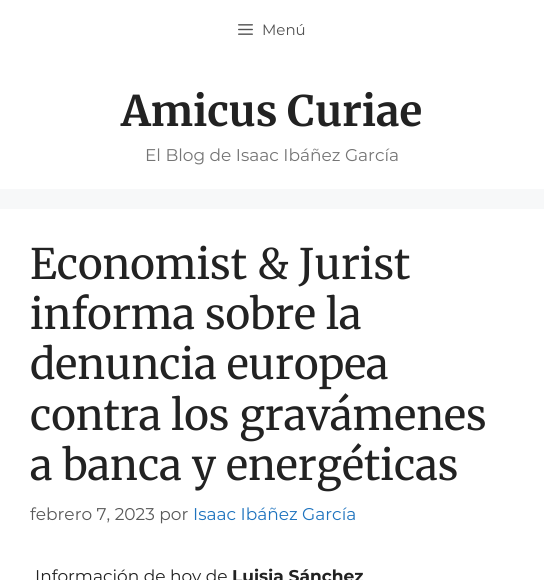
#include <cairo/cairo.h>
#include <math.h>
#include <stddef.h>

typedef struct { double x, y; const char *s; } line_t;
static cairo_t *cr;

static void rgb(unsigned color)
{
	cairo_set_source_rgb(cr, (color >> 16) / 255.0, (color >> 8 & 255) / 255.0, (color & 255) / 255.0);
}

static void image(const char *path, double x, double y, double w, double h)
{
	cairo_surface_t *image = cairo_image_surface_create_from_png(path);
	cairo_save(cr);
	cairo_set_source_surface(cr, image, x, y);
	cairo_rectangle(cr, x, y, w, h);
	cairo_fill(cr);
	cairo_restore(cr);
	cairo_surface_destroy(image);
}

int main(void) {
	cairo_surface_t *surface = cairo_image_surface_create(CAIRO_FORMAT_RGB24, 544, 580);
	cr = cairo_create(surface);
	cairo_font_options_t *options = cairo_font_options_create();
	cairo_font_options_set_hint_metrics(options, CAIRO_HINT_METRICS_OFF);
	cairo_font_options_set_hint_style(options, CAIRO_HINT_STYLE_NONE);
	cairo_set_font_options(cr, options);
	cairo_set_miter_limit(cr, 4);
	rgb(0xf7f8f9);
	cairo_paint(cr);
	rgb(0xffffff);
	cairo_rectangle(cr, 0, 0, 544, 189);
	cairo_fill(cr);
	image("img/1.png", 238, 24, 15, 11);
	cairo_rectangle(cr, 0, 209, 544, 371);
	cairo_fill(cr);
	cairo_select_font_face(cr, "Montserrat", CAIRO_FONT_SLANT_NORMAL, CAIRO_FONT_WEIGHT_NORMAL);
	cairo_set_font_size(cr, 15);
	rgb(0x515151);
	cairo_move_to(cr, 262, 35);
	cairo_show_text(cr, "Menú");
	cairo_select_font_face(cr, "Merriweather", CAIRO_FONT_SLANT_NORMAL, CAIRO_FONT_WEIGHT_BOLD);
	cairo_set_font_size(cr, 42);
	rgb(0x222222);
	cairo_move_to(cr, 121, 126);
	cairo_show_text(cr, "Amicus Curiae");
	cairo_select_font_face(cr, "Montserrat", CAIRO_FONT_SLANT_NORMAL, CAIRO_FONT_WEIGHT_NORMAL);
	cairo_set_font_size(cr, 17);
	rgb(0x757575);
	cairo_move_to(cr, 145, 161);
	cairo_show_text(cr, "El Blog de Isaac Ibáñez García");
	cairo_select_font_face(cr, "Merriweather", CAIRO_FONT_SLANT_NORMAL, CAIRO_FONT_WEIGHT_NORMAL);
	cairo_set_font_size(cr, 42);
	rgb(0x222222);
	{
		static const line_t items[] = {
			{30, 279, "Economist & Jurist"},
			{30, 329, "informa sobre la"},
			{30, 379, "denuncia europea"},
			{30, 430, "contra los gravámenes"},
			{30, 480, "a banca y energéticas"},
		};
		for (size_t i = 0; i < sizeof items / sizeof *items; i++) {
			cairo_move_to(cr, items[i].x, items[i].y);
			cairo_show_text(cr, items[i].s);
		}
	}
	cairo_select_font_face(cr, "Montserrat", CAIRO_FONT_SLANT_NORMAL, CAIRO_FONT_WEIGHT_NORMAL);
	cairo_set_font_size(cr, 17);
	rgb(0x595959);
	cairo_move_to(cr, 30, 520);
	cairo_show_text(cr, "febrero 7, 2023 por");
	rgb(0x1e73be);
	cairo_move_to(cr, 193, 520);
	cairo_show_text(cr, "Isaac Ibáñez García");
	rgb(0x222222);
	cairo_move_to(cr, 35, 582);
	cairo_show_text(cr, "Información de hoy de");
	cairo_select_font_face(cr, "Montserrat", CAIRO_FONT_SLANT_NORMAL, CAIRO_FONT_WEIGHT_BOLD);
	cairo_move_to(cr, 232, 582);
	cairo_show_text(cr, "Luisja Sánchez");
	cairo_surface_write_to_png(surface, "page.png");
	cairo_font_options_destroy(options);
	cairo_destroy(cr);
	cairo_surface_destroy(surface);
	return 0;
}
